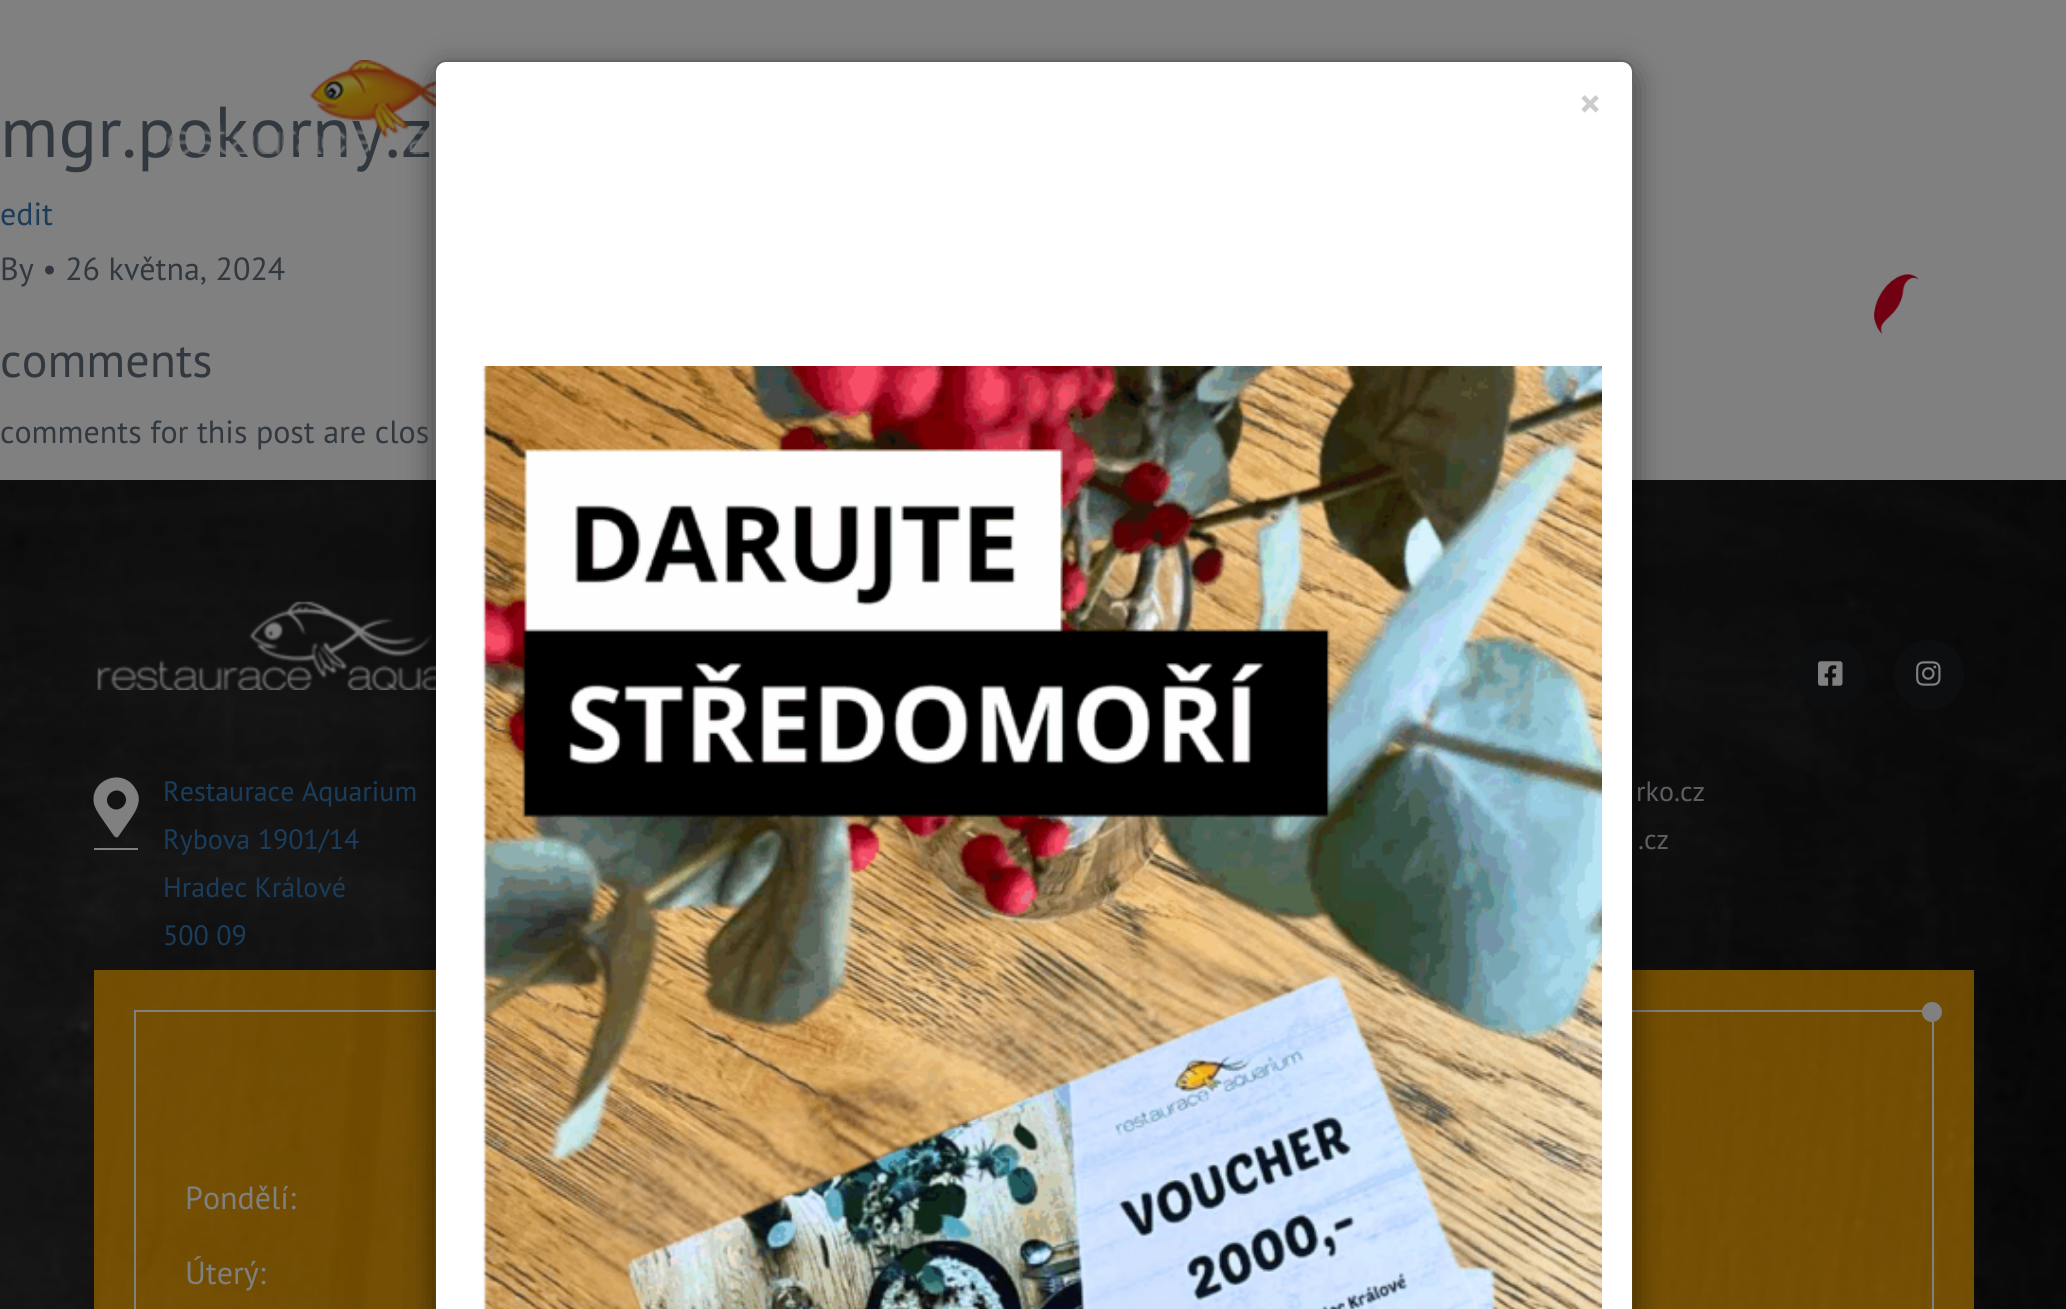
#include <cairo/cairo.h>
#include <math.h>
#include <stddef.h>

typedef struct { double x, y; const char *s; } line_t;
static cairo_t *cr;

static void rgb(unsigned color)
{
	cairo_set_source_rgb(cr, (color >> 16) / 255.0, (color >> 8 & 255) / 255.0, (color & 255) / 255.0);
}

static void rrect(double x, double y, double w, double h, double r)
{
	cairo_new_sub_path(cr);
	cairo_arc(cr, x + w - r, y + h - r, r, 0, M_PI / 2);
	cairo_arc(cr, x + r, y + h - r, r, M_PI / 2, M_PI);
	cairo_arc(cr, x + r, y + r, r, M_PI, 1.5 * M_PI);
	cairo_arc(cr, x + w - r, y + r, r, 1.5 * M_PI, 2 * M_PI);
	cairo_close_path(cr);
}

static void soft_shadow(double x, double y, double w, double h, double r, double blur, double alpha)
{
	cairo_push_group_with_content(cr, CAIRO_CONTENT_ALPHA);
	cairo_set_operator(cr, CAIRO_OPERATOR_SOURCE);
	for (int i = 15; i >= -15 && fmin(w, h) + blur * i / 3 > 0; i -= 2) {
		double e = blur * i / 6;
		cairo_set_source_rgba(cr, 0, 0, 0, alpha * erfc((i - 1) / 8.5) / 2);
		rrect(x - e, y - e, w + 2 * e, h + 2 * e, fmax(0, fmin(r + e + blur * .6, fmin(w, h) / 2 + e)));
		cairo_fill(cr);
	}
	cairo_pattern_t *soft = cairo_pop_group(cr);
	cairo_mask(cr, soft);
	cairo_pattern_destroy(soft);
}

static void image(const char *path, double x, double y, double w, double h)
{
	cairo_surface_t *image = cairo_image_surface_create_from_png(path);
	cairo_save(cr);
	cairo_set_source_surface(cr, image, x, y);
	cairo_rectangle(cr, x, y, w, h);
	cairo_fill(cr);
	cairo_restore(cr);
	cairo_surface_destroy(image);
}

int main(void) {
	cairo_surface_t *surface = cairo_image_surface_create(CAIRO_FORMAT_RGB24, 2066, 1309);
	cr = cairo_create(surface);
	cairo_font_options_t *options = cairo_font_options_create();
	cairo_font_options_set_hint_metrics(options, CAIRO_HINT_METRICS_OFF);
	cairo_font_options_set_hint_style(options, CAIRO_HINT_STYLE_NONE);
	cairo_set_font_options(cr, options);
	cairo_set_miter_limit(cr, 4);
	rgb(0x808080);
	cairo_paint(cr);
	image("img/2.png", 1874, 274, 45, 60);
	image("img/4.png", 0, 480, 2066, 829);
	image("img/5.png", 97, 601, 339, 89);
	rgb(0x0d0e0f);
	cairo_arc(cr, 1831, 675, 35, 0, 2 * M_PI);
	cairo_fill(cr);
	image("img/6.png", 1818, 661, 25, 25);
	cairo_arc(cr, 1929, 675, 35, 0, 2 * M_PI);
	cairo_fill(cr);
	image("img/7.png", 1916, 661, 25, 25);
	rgb(0x808080);
	cairo_rectangle(cr, 94, 848, 44, 2);
	cairo_fill(cr);
	cairo_new_path(cr);
	cairo_move_to(cr, 114, 836);
	cairo_line_to(cr, 105, 823);
	cairo_curve_to(cr, 101, 817, 96, 811, 94, 804);
	cairo_curve_to(cr, 89, 780, 122, 767, 135, 788);
	cairo_curve_to(cr, 145, 802, 133, 815, 125, 827);
	cairo_line_to(cr, 118, 837);
	cairo_curve_to(cr, 117, 838, 115, 837, 114, 836);
	cairo_close_path(cr);
	cairo_move_to(cr, 110, 807);
	cairo_curve_to(cr, 119, 815, 132, 802, 123, 793);
	cairo_curve_to(cr, 114, 785, 101, 798, 110, 807);
	cairo_close_path(cr);
	cairo_fill(cr);
	image("img/8.png", 94, 970, 1880, 339);
	cairo_rectangle(cr, 135, 1011, 1798, 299);
	cairo_stroke(cr);
	cairo_arc(cr, 1932, 1012, 10, 0, 2 * M_PI);
	cairo_fill(cr);
	cairo_select_font_face(cr, "PT Sans", CAIRO_FONT_SLANT_NORMAL, CAIRO_FONT_WEIGHT_NORMAL);
	cairo_set_font_size(cr, 72);
	rgb(0x31383f);
	cairo_move_to(cr, 0, 157);
	cairo_show_text(cr, "mgr.pokorny.z");
	image("img/1.png", 154, 60, 282, 94);
	cairo_save(cr);
	cairo_set_fill_rule(cr, CAIRO_FILL_RULE_EVEN_ODD);
	cairo_new_path(cr);
	cairo_move_to(cr, 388, 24);
	cairo_line_to(cr, 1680, 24);
	cairo_line_to(cr, 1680, 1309);
	cairo_line_to(cr, 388, 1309);
	cairo_close_path(cr);
	cairo_move_to(cr, 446, 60);
	cairo_line_to(cr, 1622, 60);
	cairo_curve_to(cr, 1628.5, 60, 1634, 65.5, 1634, 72);
	cairo_line_to(cr, 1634, 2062);
	cairo_curve_to(cr, 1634, 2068.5, 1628.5, 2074, 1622, 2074);
	cairo_line_to(cr, 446, 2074);
	cairo_curve_to(cr, 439.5, 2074, 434, 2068.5, 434, 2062);
	cairo_line_to(cr, 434, 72);
	cairo_curve_to(cr, 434, 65.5, 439.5, 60, 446, 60);
	cairo_close_path(cr);
	cairo_clip(cr);
	rgb(0x000000);
	soft_shadow(434, 70, 1200, 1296, 12, 15, 0.5);
	cairo_restore(cr);
	rgb(0xffffff);
	cairo_new_path(cr);
	cairo_move_to(cr, 446, 62);
	cairo_line_to(cr, 1622, 62);
	cairo_curve_to(cr, 1627.5, 62, 1632, 66.5, 1632, 72);
	cairo_line_to(cr, 1632, 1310);
	cairo_line_to(cr, 436, 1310);
	cairo_line_to(cr, 436, 72);
	cairo_curve_to(cr, 436, 66.5, 440.5, 62, 446, 62);
	cairo_close_path(cr);
	cairo_fill(cr);
	rrect(435, 61, 1198, 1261, 11);
	cairo_set_source_rgba(cr, 0, 0, 0, 0.2);
	cairo_stroke(cr);
	cairo_select_font_face(cr, "PT Sans", CAIRO_FONT_SLANT_NORMAL, CAIRO_FONT_WEIGHT_BOLD);
	cairo_set_font_size(cr, 42);
	rgb(0xcccccc);
	cairo_move_to(cr, 1579, 118);
	cairo_show_text(cr, "×");
	image("img/3.png", 482, 366, 1120, 943);
	cairo_select_font_face(cr, "PT Sans", CAIRO_FONT_SLANT_NORMAL, CAIRO_FONT_WEIGHT_NORMAL);
	cairo_set_font_size(cr, 32);
	rgb(0x1a3d5c);
	cairo_move_to(cr, 0, 225);
	cairo_show_text(cr, "edit");
	rgb(0x31383f);
	cairo_move_to(cr, 0, 280);
	cairo_show_text(cr, "By • 26 května, 2024");
	cairo_set_font_size(cr, 48);
	cairo_move_to(cr, 0, 377);
	cairo_show_text(cr, "comments");
	cairo_set_font_size(cr, 32);
	cairo_move_to(cr, 0, 443);
	cairo_show_text(cr, "comments for this post are clos");
	cairo_set_font_size(cr, 28);
	rgb(0x1a3d5c);
	{
		static const line_t items[] = {
			{163, 801, "Restaurace Aquarium"},
			{163, 849, "Rybova 1901/14"},
			{163, 897, "Hradec Králové"},
			{163, 945, "500 09"},
		};
		for (size_t i = 0; i < sizeof items / sizeof *items; i++) {
			cairo_move_to(cr, items[i].x, items[i].y);
			cairo_show_text(cr, items[i].s);
		}
	}
	rgb(0x5e5d61);
	cairo_move_to(cr, 1636, 801);
	cairo_show_text(cr, "rko.cz");
	cairo_move_to(cr, 1638, 849);
	cairo_show_text(cr, ".cz");
	cairo_set_font_size(cr, 32);
	rgb(0x808080);
	cairo_move_to(cr, 185, 1209);
	cairo_show_text(cr, "Pondělí:");
	cairo_move_to(cr, 185, 1284);
	cairo_show_text(cr, "Úterý:");
	cairo_surface_write_to_png(surface, "page.png");
	cairo_font_options_destroy(options);
	cairo_destroy(cr);
	cairo_surface_destroy(surface);
	return 0;
}
